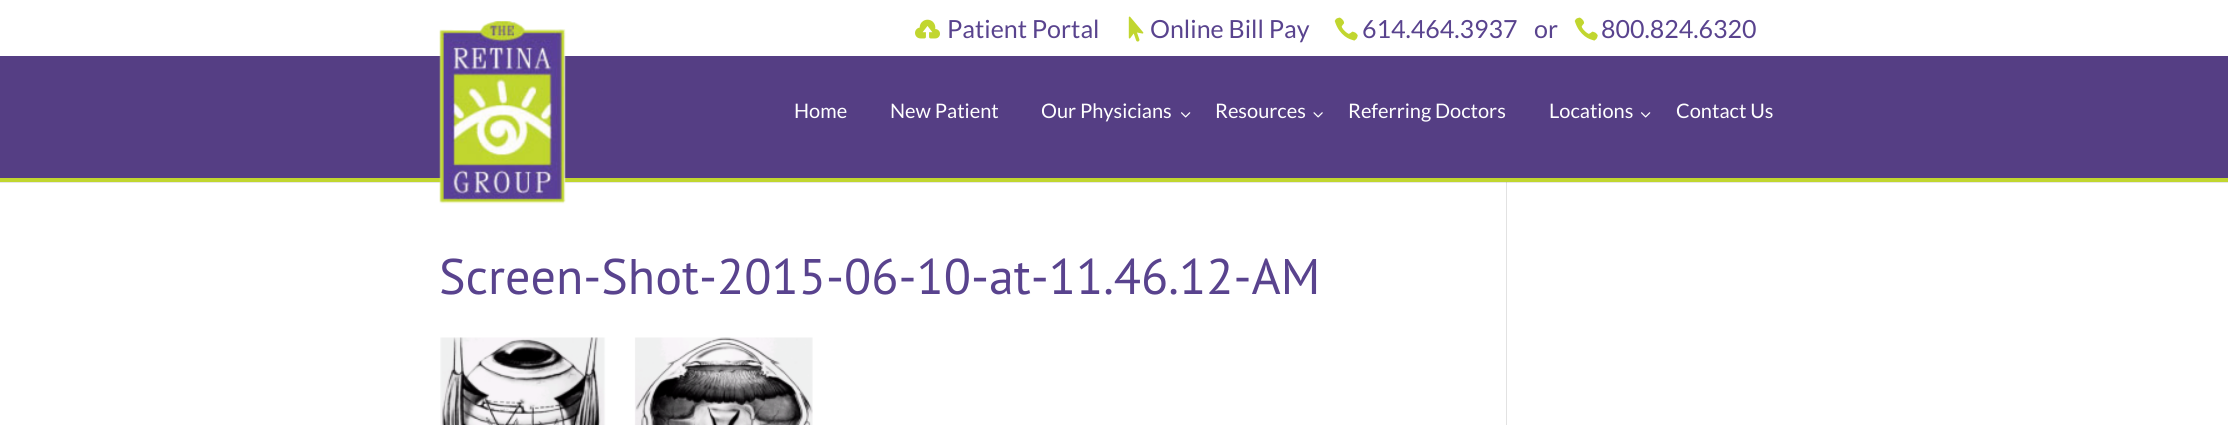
#include <cairo/cairo.h>
#include <math.h>
#include <stddef.h>

typedef struct { double x, y; const char *s; } line_t;
static cairo_t *cr;

static void rgb(unsigned color)
{
	cairo_set_source_rgb(cr, (color >> 16) / 255.0, (color >> 8 & 255) / 255.0, (color & 255) / 255.0);
}

static void image(const char *path, double x, double y, double w, double h)
{
	cairo_surface_t *image = cairo_image_surface_create_from_png(path);
	cairo_save(cr);
	cairo_set_source_surface(cr, image, x, y);
	cairo_rectangle(cr, x, y, w, h);
	cairo_fill(cr);
	cairo_restore(cr);
	cairo_surface_destroy(image);
}

int main(void) {
	cairo_surface_t *surface = cairo_image_surface_create(CAIRO_FORMAT_RGB24, 2228, 425);
	cr = cairo_create(surface);
	cairo_font_options_t *options = cairo_font_options_create();
	cairo_font_options_set_hint_metrics(options, CAIRO_HINT_METRICS_OFF);
	cairo_font_options_set_hint_style(options, CAIRO_HINT_STYLE_NONE);
	cairo_set_font_options(cr, options);
	cairo_set_miter_limit(cr, 4);
	rgb(0x553e84);
	cairo_paint(cr);
	rgb(0xffffff);
	cairo_rectangle(cr, 0, 0, 2228, 56);
	cairo_fill(cr);
	image("img/1.png", 915, 19, 25, 20);
	image("img/2.png", 1128, 16, 16, 26);
	image("img/3.png", 1334, 17, 24, 24);
	image("img/3.png", 1574, 17, 24, 24);
	cairo_rectangle(cr, 0, 182, 2228, 243);
	cairo_fill(cr);
	rgb(0xe2e2e2);
	cairo_rectangle(cr, 1506, 178, 1, 247);
	cairo_fill(cr);
	cairo_set_source_rgba(cr, 0, 0, 0, 0.1);
	cairo_new_path(cr);
	cairo_move_to(cr, 0, 181);
	cairo_line_to(cr, 0, 183);
	cairo_line_to(cr, 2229, 183);
	cairo_line_to(cr, 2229, 58);
	cairo_line_to(cr, 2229, 181);
	cairo_close_path(cr);
	cairo_fill(cr);
	rgb(0xc1d62f);
	cairo_rectangle(cr, 0, 178, 2228, 4);
	cairo_fill(cr);
	image("img/4.png", 439, 21, 127, 183);
	image("img/5.png", 1181, 112, 10, 6);
	image("img/6.png", 1313, 112, 10, 6);
	image("img/5.png", 1641, 112, 10, 6);
	image("img/7.png", 440, 337, 373, 88);
	cairo_select_font_face(cr, "Lato", CAIRO_FONT_SLANT_NORMAL, CAIRO_FONT_WEIGHT_NORMAL);
	cairo_set_font_size(cr, 25);
	rgb(0x59438e);
	{
		static const line_t items[] = {
			{947, 38, "Patient Portal"},
			{1150, 38, "Online Bill Pay"},
			{1362, 38, "614.464.3937"},
			{1534, 38, "or"},
			{1601, 38, "800.824.6320"},
		};
		for (size_t i = 0; i < sizeof items / sizeof *items; i++) {
			cairo_move_to(cr, items[i].x, items[i].y);
			cairo_show_text(cr, items[i].s);
		}
	}
	cairo_set_font_size(cr, 20);
	rgb(0xffffff);
	{
		static const line_t items[] = {
			{794, 118, "Home"},
			{890, 118, "New Patient"},
			{1041, 118, "Our Physicians"},
			{1215, 118, "Resources"},
			{1348, 118, "Referring Doctors"},
			{1549, 118, "Locations"},
			{1676, 118, "Contact Us"},
		};
		for (size_t i = 0; i < sizeof items / sizeof *items; i++) {
			cairo_move_to(cr, items[i].x, items[i].y);
			cairo_show_text(cr, items[i].s);
		}
	}
	cairo_select_font_face(cr, "PT Sans", CAIRO_FONT_SLANT_NORMAL, CAIRO_FONT_WEIGHT_NORMAL);
	cairo_set_font_size(cr, 50);
	rgb(0x59438e);
	cairo_move_to(cr, 439, 294);
	cairo_show_text(cr, "Screen-Shot-2015-06-10-at-11.46.12-AM");
	cairo_surface_write_to_png(surface, "page.png");
	cairo_font_options_destroy(options);
	cairo_destroy(cr);
	cairo_surface_destroy(surface);
	return 0;
}
